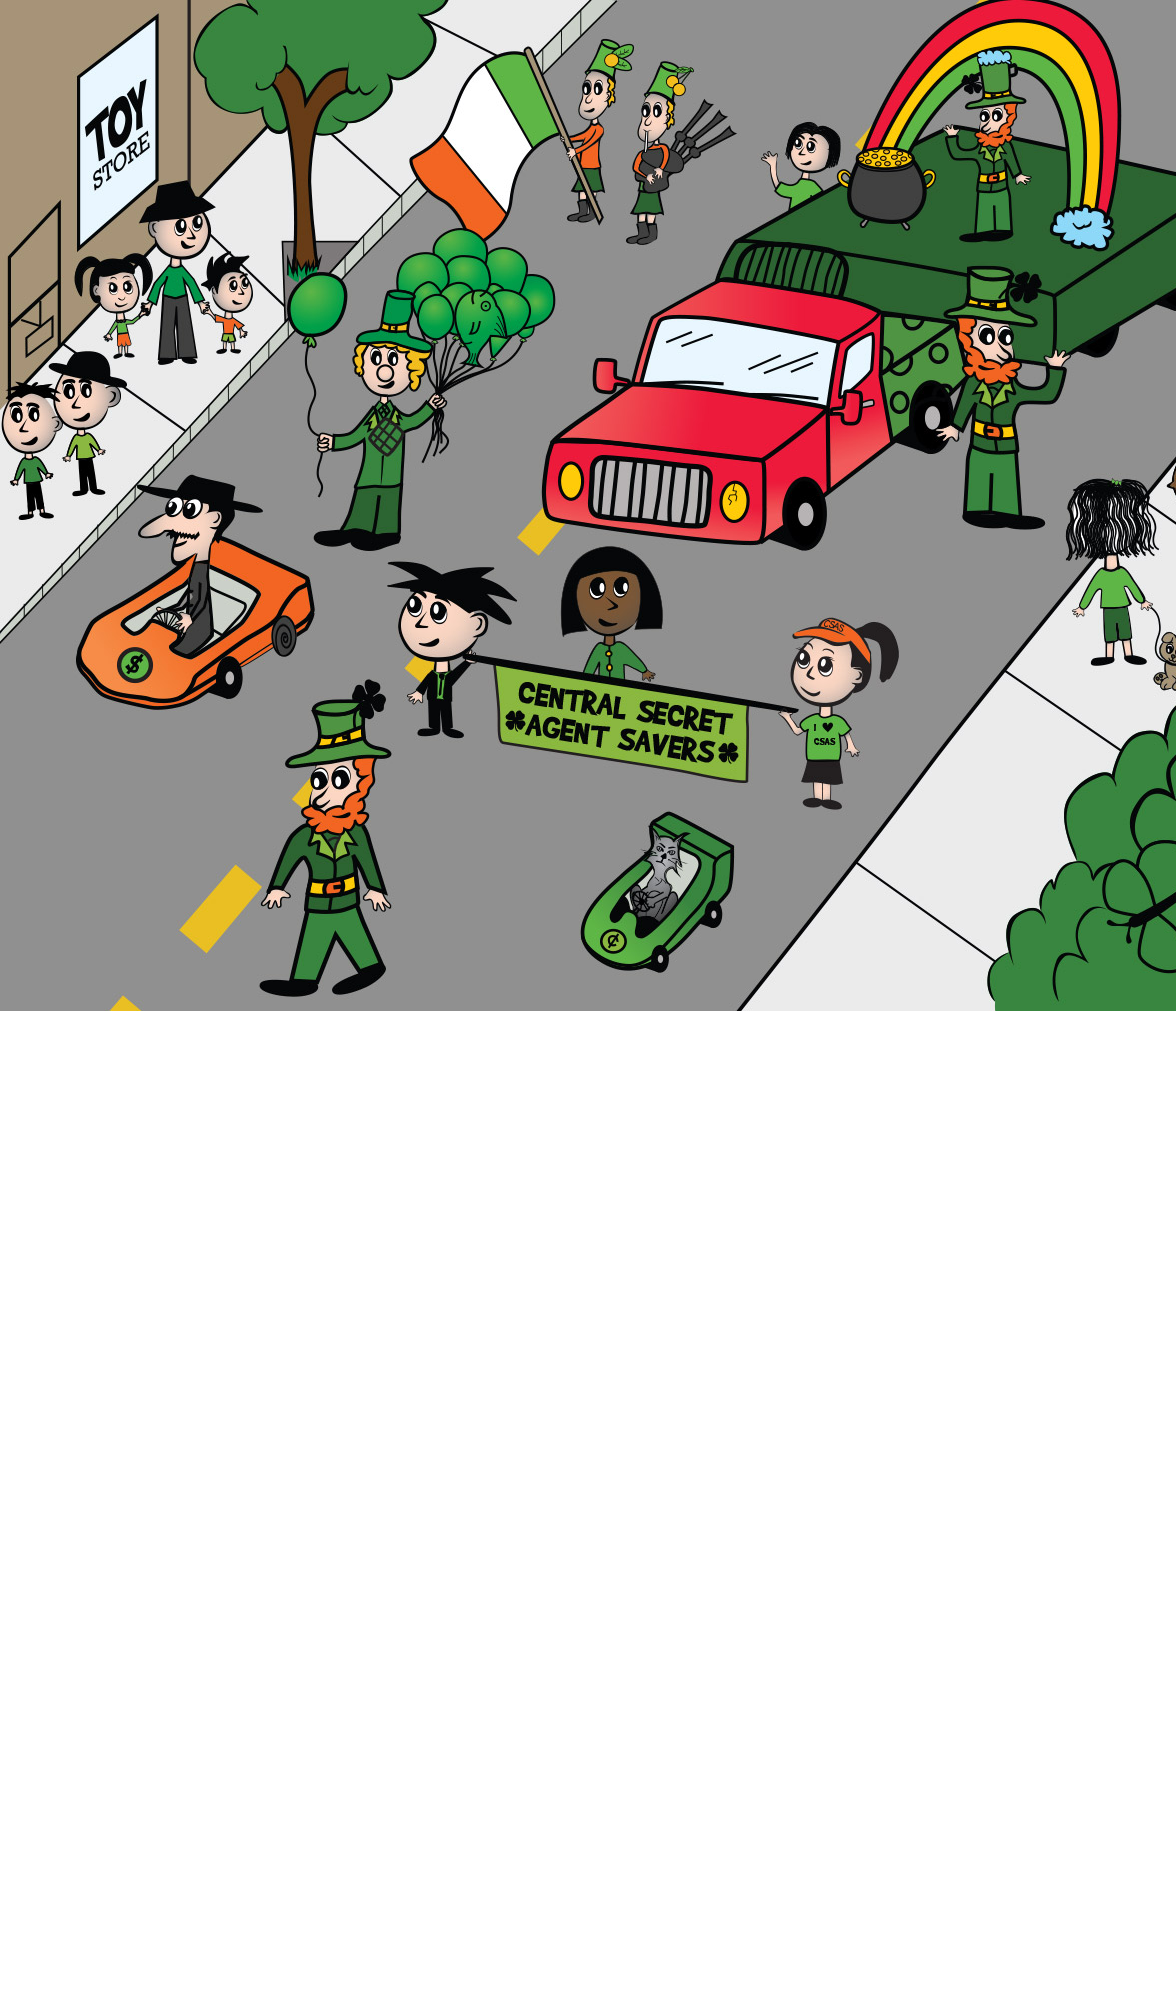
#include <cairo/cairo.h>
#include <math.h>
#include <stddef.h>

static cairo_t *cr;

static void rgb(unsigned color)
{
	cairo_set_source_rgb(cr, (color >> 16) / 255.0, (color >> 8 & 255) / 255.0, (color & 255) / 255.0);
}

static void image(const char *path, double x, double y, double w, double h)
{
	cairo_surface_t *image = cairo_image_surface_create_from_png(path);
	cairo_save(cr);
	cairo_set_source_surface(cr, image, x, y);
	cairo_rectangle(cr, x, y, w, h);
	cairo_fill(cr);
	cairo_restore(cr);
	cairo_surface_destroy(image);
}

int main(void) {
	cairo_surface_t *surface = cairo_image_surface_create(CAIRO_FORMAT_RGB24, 1176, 2011);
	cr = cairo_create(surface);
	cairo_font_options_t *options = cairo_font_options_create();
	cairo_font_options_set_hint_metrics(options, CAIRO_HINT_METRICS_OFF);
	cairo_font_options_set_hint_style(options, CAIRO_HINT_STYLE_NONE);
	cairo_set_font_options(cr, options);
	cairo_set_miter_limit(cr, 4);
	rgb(0xffffff);
	cairo_paint(cr);
	image("img/1.png", 0, 0, 1176, 41);
	image("img/2.png", 0, 41, 959, 18);
	image("img/3.png", 959, 41, 75, 84);
	image("img/4.png", 1034, 41, 142, 796);
	image("img/5.png", 0, 59, 661, 229);
	image("img/6.png", 661, 59, 40, 47);
	image("img/7.png", 701, 59, 258, 78);
	image("img/8.png", 661, 106, 40, 905);
	image("img/9.png", 701, 137, 148, 101);
	image("img/10.png", 849, 137, 75, 43);
	image("img/11.png", 924, 137, 35, 169);
	image("img/12.png", 959, 125, 75, 181);
	image("img/13.png", 849, 180, 75, 58);
	image("img/14.png", 0, 288, 448, 125);
	image("img/15.png", 448, 288, 67, 87);
	image("img/16.png", 515, 288, 146, 723);
	image("img/17.png", 701, 238, 32, 234);
	image("img/18.png", 733, 238, 123, 69);
	image("img/19.png", 856, 238, 68, 68);
	image("img/20.png", 856, 306, 20, 705);
	image("img/21.png", 876, 306, 97, 142);
	image("img/22.png", 973, 306, 61, 705);
	image("img/23.png", 0, 413, 363, 195);
	image("img/24.png", 363, 413, 51, 49);
	image("img/25.png", 414, 413, 34, 598);
	image("img/26.png", 448, 375, 67, 636);
	image("img/27.png", 733, 307, 123, 165);
	image("img/28.png", 876, 448, 97, 563);
	image("img/29.png", 363, 462, 51, 549);
	image("img/30.png", 701, 472, 12, 539);
	image("img/31.png", 713, 472, 47, 59);
	image("img/32.png", 760, 472, 96, 539);
	image("img/33.png", 0, 608, 233, 403);
	image("img/34.png", 233, 608, 75, 62);
	image("img/35.png", 308, 608, 55, 403);
	image("img/36.png", 713, 531, 47, 480);
	image("img/37.png", 233, 670, 75, 341);
	image("img/38.png", 1034, 837, 66, 174);
	image("img/39.png", 1100, 837, 76, 138);
	rgb(0x398640);
	cairo_rectangle(cr, 1100, 975, 76, 36);
	cairo_fill(cr);
	cairo_surface_write_to_png(surface, "page.png");
	cairo_font_options_destroy(options);
	cairo_destroy(cr);
	cairo_surface_destroy(surface);
	return 0;
}
